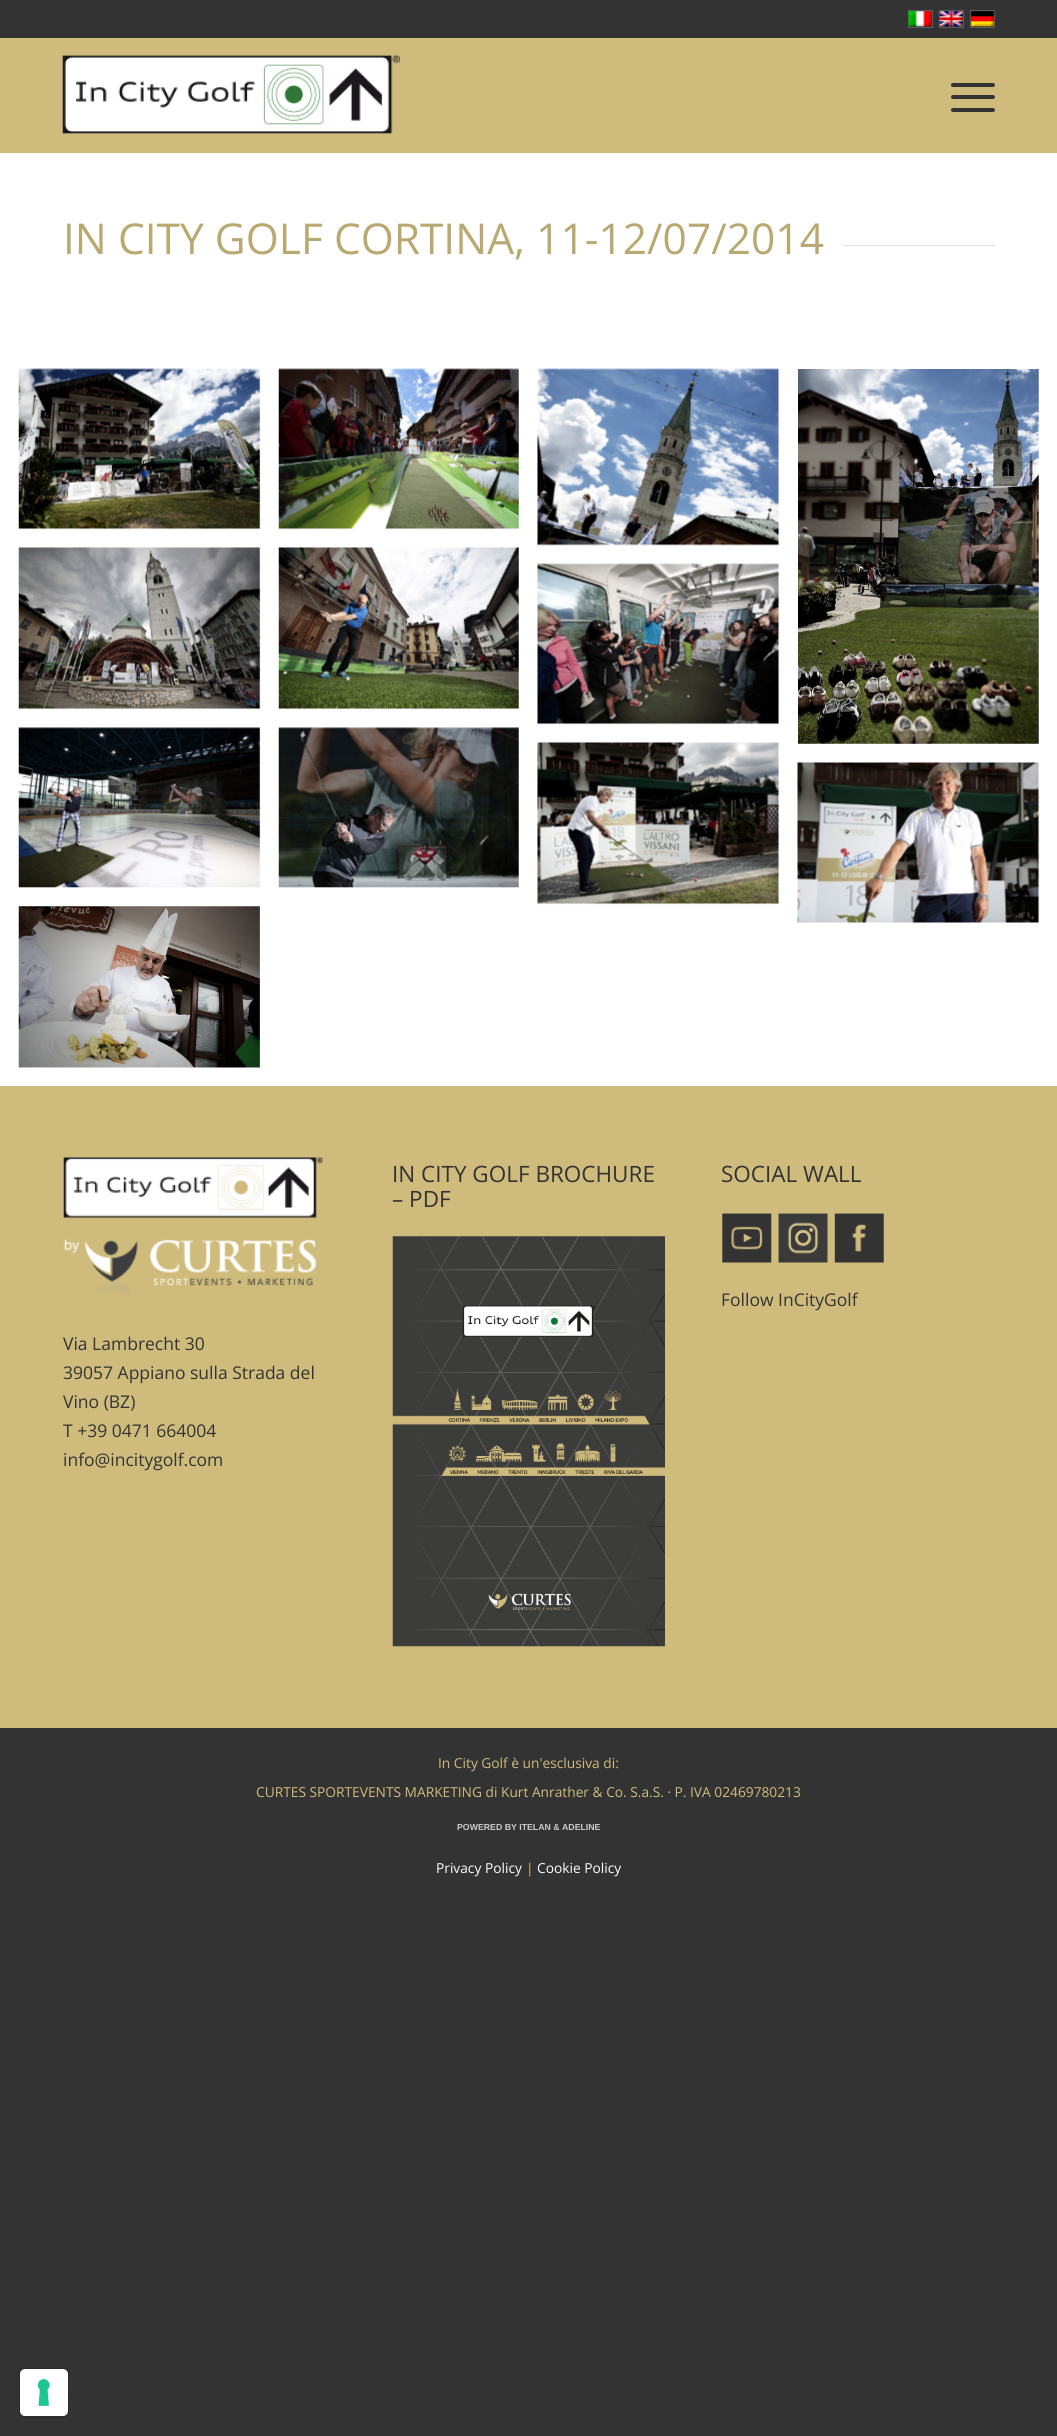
#include <cairo/cairo.h>
#include <math.h>
#include <stddef.h>

typedef struct { double x, y; const char *s; } line_t;
typedef struct { double x, y, w, h; unsigned color; } box_t;
static cairo_t *cr;

static void rgb(unsigned color)
{
	cairo_set_source_rgb(cr, (color >> 16) / 255.0, (color >> 8 & 255) / 255.0, (color & 255) / 255.0);
}

static void rrect(double x, double y, double w, double h, double r)
{
	cairo_new_sub_path(cr);
	cairo_arc(cr, x + w - r, y + h - r, r, 0, M_PI / 2);
	cairo_arc(cr, x + r, y + h - r, r, M_PI / 2, M_PI);
	cairo_arc(cr, x + r, y + r, r, M_PI, 1.5 * M_PI);
	cairo_arc(cr, x + w - r, y + r, r, 1.5 * M_PI, 2 * M_PI);
	cairo_close_path(cr);
}

static void image(const char *path, double x, double y, double w, double h)
{
	cairo_surface_t *image = cairo_image_surface_create_from_png(path);
	cairo_save(cr);
	cairo_set_source_surface(cr, image, x, y);
	cairo_rectangle(cr, x, y, w, h);
	cairo_fill(cr);
	cairo_restore(cr);
	cairo_surface_destroy(image);
}

int main(void) {
	cairo_surface_t *surface = cairo_image_surface_create(CAIRO_FORMAT_RGB24, 1057, 2436);
	cr = cairo_create(surface);
	cairo_font_options_t *options = cairo_font_options_create();
	cairo_font_options_set_hint_metrics(options, CAIRO_HINT_METRICS_OFF);
	cairo_font_options_set_hint_style(options, CAIRO_HINT_STYLE_NONE);
	cairo_set_font_options(cr, options);
	cairo_set_miter_limit(cr, 4);
	rgb(0x333333);
	cairo_paint(cr);
	cairo_rectangle(cr, 908.5, 10.5, 24, 17);
	rgb(0x5c5c5c);
	cairo_set_line_width(cr, 1);
	cairo_stroke(cr);
	image("img/1.png", 908, 11, 24, 16);
	cairo_rectangle(cr, 939.5, 10.5, 24, 17);
	cairo_stroke(cr);
	image("img/2.png", 939, 11, 24, 16);
	cairo_rectangle(cr, 970.5, 10.5, 24, 17);
	cairo_stroke(cr);
	image("img/3.png", 970, 11, 25, 16);
	rgb(0xcfbc7c);
	cairo_rectangle(cr, 0, 38, 1057, 115);
	cairo_fill(cr);
	image("img/4.png", 62, 55, 338, 79);
	rgb(0x333333);
	rrect(951, 95, 44, 4, 2);
	cairo_fill(cr);
	rrect(951, 83, 44, 4, 2);
	cairo_fill(cr);
	rrect(951, 108, 44, 4, 2);
	cairo_fill(cr);
	{
		static const box_t items[] = {
			{0, 1086, 1057, 642, 0xcfbc7c},
			{0, 153, 1057, 933, 0xffffff},
			{843, 245, 152, 1, 0xe0e0e0},
		};
		for (size_t i = 0; i < sizeof items / sizeof *items; i++) {
			rgb(items[i].color);
			cairo_rectangle(cr, items[i].x, items[i].y, items[i].w, items[i].h);
			cairo_fill(cr);
		}
	}
	image("img/5.png", 18, 368, 243, 162);
	image("img/6.png", 278, 368, 241, 162);
	image("img/7.png", 537, 368, 243, 178);
	image("img/8.png", 798, 369, 241, 375);
	image("img/9.png", 18, 547, 243, 163);
	image("img/10.png", 278, 547, 241, 163);
	image("img/11.png", 537, 563, 243, 162);
	image("img/12.png", 18, 727, 243, 161);
	image("img/13.png", 278, 727, 241, 161);
	image("img/14.png", 537, 742, 243, 163);
	image("img/15.png", 797, 762, 243, 161);
	image("img/16.png", 18, 906, 242, 162);
	image("img/17.png", 392, 1236, 273, 411);
	image("img/18.png", 722, 1213, 50, 50);
	image("img/19.png", 778, 1213, 50, 50);
	image("img/20.png", 834, 1213, 50, 50);
	image("img/21.png", 63, 1157, 260, 139);
	rrect(19.5, 2368.5, 49, 49, 5.5);
	rgb(0x2b2b2b);
	cairo_stroke(cr);
	rgb(0xffffff);
	rrect(20, 2369, 48, 47, 5);
	cairo_fill(cr);
	image("img/22.png", 37, 2379, 13, 27);
	cairo_select_font_face(cr, "Open Sans", CAIRO_FONT_SLANT_NORMAL, CAIRO_FONT_WEIGHT_NORMAL);
	cairo_set_font_size(cr, 42.5);
	rgb(0xbaa871);
	cairo_move_to(cr, 63, 254);
	cairo_show_text(cr, "IN CITY GOLF CORTINA, 11-12/07/2014");
	cairo_set_font_size(cr, 22.5);
	rgb(0x333333);
	{
		static const line_t items[] = {
			{392, 1182, "IN CITY GOLF BROCHURE"},
			{392, 1207, "– PDF"},
			{721, 1182, "SOCIAL WALL"},
		};
		for (size_t i = 0; i < sizeof items / sizeof *items; i++) {
			cairo_move_to(cr, items[i].x, items[i].y);
			cairo_show_text(cr, items[i].s);
		}
	}
	cairo_set_font_size(cr, 17.5);
	{
		static const line_t items[] = {
			{721, 1306, "Follow InCityGolf"},
			{63, 1350, "Via Lambrecht 30"},
			{63, 1379, "39057 Appiano sulla Strada del"},
			{63, 1408, "Vino (BZ)"},
			{63, 1437, "T +39 0471 664004"},
			{63, 1466, "info@incitygolf.com"},
		};
		for (size_t i = 0; i < sizeof items / sizeof *items; i++) {
			cairo_move_to(cr, items[i].x, items[i].y);
			cairo_show_text(cr, items[i].s);
		}
	}
	cairo_set_font_size(cr, 13.75);
	rgb(0xcfbc7c);
	cairo_move_to(cr, 438, 1768);
	cairo_show_text(cr, "In City Golf è un'esclusiva di:");
	cairo_move_to(cr, 256, 1797);
	cairo_show_text(cr, "CURTES SPORTEVENTS MARKETING di Kurt Anrather & Co. S.a.S. · P. IVA 02469780213");
	cairo_select_font_face(cr, "Liberation Sans", CAIRO_FONT_SLANT_NORMAL, CAIRO_FONT_WEIGHT_BOLD);
	cairo_set_font_size(cr, 8.75);
	rgb(0xcccccc);
	cairo_move_to(cr, 457, 1830);
	cairo_show_text(cr, "POWERED BY ITELAN & ADELINE");
	cairo_select_font_face(cr, "Open Sans", CAIRO_FONT_SLANT_NORMAL, CAIRO_FONT_WEIGHT_NORMAL);
	cairo_set_font_size(cr, 13.75);
	rgb(0xffffff);
	cairo_move_to(cr, 436, 1873);
	cairo_show_text(cr, "Privacy Policy");
	rgb(0xcfbc7c);
	cairo_move_to(cr, 526, 1873);
	cairo_show_text(cr, "|");
	rgb(0xffffff);
	cairo_move_to(cr, 537, 1873);
	cairo_show_text(cr, "Cookie Policy");
	cairo_surface_write_to_png(surface, "page.png");
	cairo_font_options_destroy(options);
	cairo_destroy(cr);
	cairo_surface_destroy(surface);
	return 0;
}
